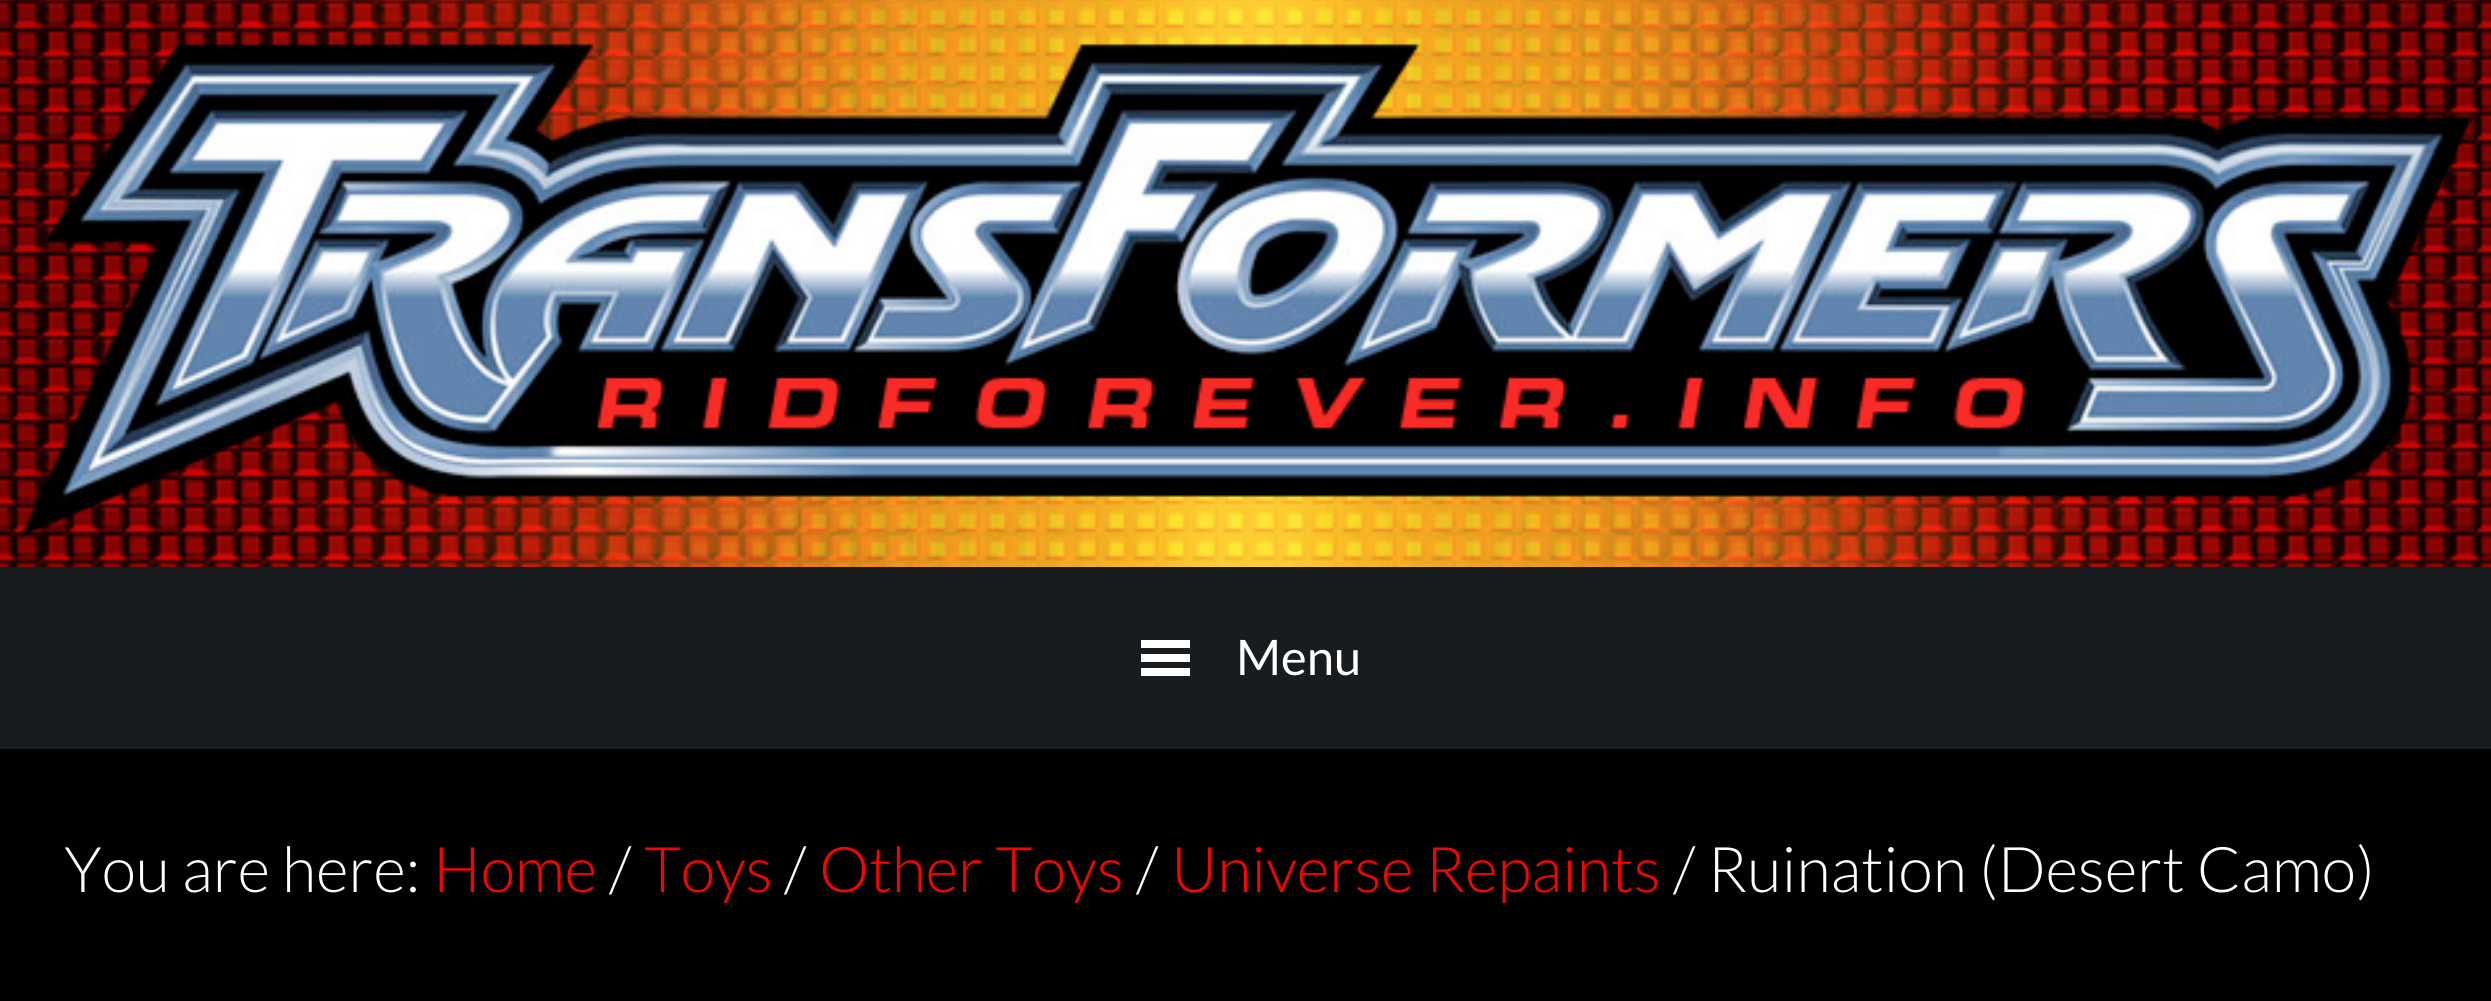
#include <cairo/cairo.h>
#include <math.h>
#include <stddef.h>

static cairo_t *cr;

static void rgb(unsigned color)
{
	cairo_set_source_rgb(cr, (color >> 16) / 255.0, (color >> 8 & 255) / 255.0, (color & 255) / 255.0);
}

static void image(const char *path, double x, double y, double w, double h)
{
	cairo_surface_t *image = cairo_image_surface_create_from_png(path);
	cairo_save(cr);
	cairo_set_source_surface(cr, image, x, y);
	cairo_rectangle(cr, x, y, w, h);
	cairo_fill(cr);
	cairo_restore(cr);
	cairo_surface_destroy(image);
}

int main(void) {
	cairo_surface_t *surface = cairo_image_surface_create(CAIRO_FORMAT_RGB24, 2491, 1001);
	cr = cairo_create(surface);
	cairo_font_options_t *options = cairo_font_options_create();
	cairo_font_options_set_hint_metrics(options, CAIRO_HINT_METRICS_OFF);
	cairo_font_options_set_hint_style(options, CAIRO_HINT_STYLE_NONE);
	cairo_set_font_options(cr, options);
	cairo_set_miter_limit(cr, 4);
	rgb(0xffffff);
	cairo_paint(cr);
	image("img/1.png", 0, 0, 2491, 567);
	image("img/2.png", 20, 43, 2454, 496);
	rgb(0x181c1e);
	cairo_rectangle(cr, 0, 567, 2491, 182);
	cairo_fill(cr);
	rgb(0xffffff);
	cairo_new_path(cr);
	cairo_move_to(cr, 1190, 648);
	cairo_line_to(cr, 1190, 640);
	cairo_line_to(cr, 1141, 640);
	cairo_line_to(cr, 1141, 648);
	cairo_close_path(cr);
	cairo_move_to(cr, 1190, 662);
	cairo_line_to(cr, 1190, 654);
	cairo_line_to(cr, 1141, 654);
	cairo_line_to(cr, 1141, 662);
	cairo_close_path(cr);
	cairo_move_to(cr, 1190, 676);
	cairo_line_to(cr, 1190, 668);
	cairo_line_to(cr, 1141, 668);
	cairo_line_to(cr, 1141, 676);
	cairo_close_path(cr);
	cairo_fill(cr);
	rgb(0x000000);
	cairo_rectangle(cr, 0, 749, 2491, 252);
	cairo_fill(cr);
	cairo_select_font_face(cr, "Lato", CAIRO_FONT_SLANT_NORMAL, CAIRO_FONT_WEIGHT_NORMAL);
	cairo_set_font_size(cr, 49);
	rgb(0xffffff);
	cairo_move_to(cr, 1236, 675);
	cairo_show_text(cr, "Menu");
	cairo_select_font_face(cr, "Lato Light", CAIRO_FONT_SLANT_NORMAL, CAIRO_FONT_WEIGHT_NORMAL);
	cairo_set_font_size(cr, 63);
	cairo_move_to(cr, 64, 892);
	cairo_show_text(cr, "You are here:");
	rgb(0xff0000);
	cairo_move_to(cr, 433, 892);
	cairo_show_text(cr, "Home");
	rgb(0xffffff);
	cairo_move_to(cr, 609, 892);
	cairo_show_text(cr, "/");
	rgb(0xff0000);
	cairo_move_to(cr, 644, 892);
	cairo_show_text(cr, "Toys");
	rgb(0xffffff);
	cairo_move_to(cr, 784, 892);
	cairo_show_text(cr, "/");
	rgb(0xff0000);
	cairo_move_to(cr, 819, 892);
	cairo_show_text(cr, "Other Toys");
	rgb(0xffffff);
	cairo_move_to(cr, 1136, 892);
	cairo_show_text(cr, "/");
	rgb(0xff0000);
	cairo_move_to(cr, 1171, 892);
	cairo_show_text(cr, "Universe Repaints");
	rgb(0xffffff);
	cairo_move_to(cr, 1673, 892);
	cairo_show_text(cr, "/ Ruination (Desert Camo)");
	cairo_surface_write_to_png(surface, "page.png");
	cairo_font_options_destroy(options);
	cairo_destroy(cr);
	cairo_surface_destroy(surface);
	return 0;
}
